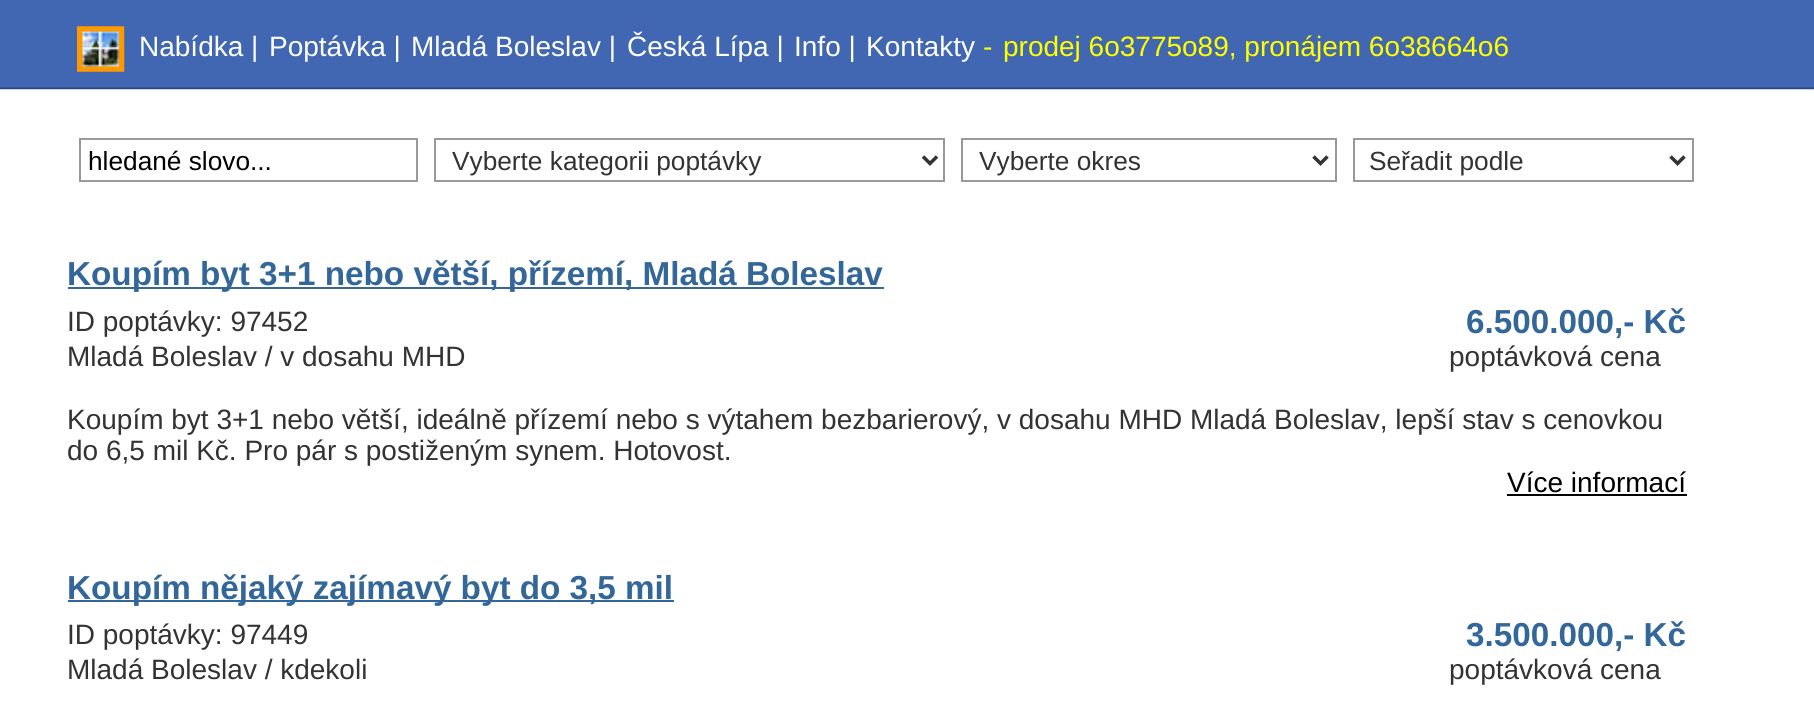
#include <cairo/cairo.h>
#include <math.h>
#include <stddef.h>

typedef struct { double x, y; const char *s; } line_t;
typedef struct { double x, y, w, h; unsigned color; } box_t;
static cairo_t *cr;

static void rgb(unsigned color)
{
	cairo_set_source_rgb(cr, (color >> 16) / 255.0, (color >> 8 & 255) / 255.0, (color & 255) / 255.0);
}

static void image(const char *path, double x, double y, double w, double h)
{
	cairo_surface_t *image = cairo_image_surface_create_from_png(path);
	cairo_save(cr);
	cairo_set_source_surface(cr, image, x, y);
	cairo_rectangle(cr, x, y, w, h);
	cairo_fill(cr);
	cairo_restore(cr);
	cairo_surface_destroy(image);
}

int main(void) {
	cairo_surface_t *surface = cairo_image_surface_create(CAIRO_FORMAT_RGB24, 1814, 716);
	cr = cairo_create(surface);
	cairo_font_options_t *options = cairo_font_options_create();
	cairo_font_options_set_hint_metrics(options, CAIRO_HINT_METRICS_OFF);
	cairo_font_options_set_hint_style(options, CAIRO_HINT_STYLE_NONE);
	cairo_set_font_options(cr, options);
	cairo_set_miter_limit(cr, 4);
	rgb(0xffffff);
	cairo_paint(cr);
	image("img/1.png", 0, 0, 1814, 90);
	image("img/2.png", 77, 26, 48, 46);
	cairo_rectangle(cr, 80, 139, 337, 42);
	rgb(0x999999);
	cairo_stroke(cr);
	cairo_rectangle(cr, 435, 139, 509, 42);
	cairo_stroke(cr);
	cairo_new_path(cr);
	cairo_move_to(cr, 923, 156.5);
	cairo_line_to(cr, 930, 163.5);
	cairo_line_to(cr, 937, 156.5);
	rgb(0x333333);
	cairo_set_line_width(cr, 3.5);
	cairo_stroke(cr);
	cairo_rectangle(cr, 962, 139, 374, 42);
	rgb(0x999999);
	cairo_set_line_width(cr, 2);
	cairo_stroke(cr);
	cairo_new_path(cr);
	cairo_move_to(cr, 1313.5, 156.5);
	cairo_line_to(cr, 1320.5, 163.5);
	cairo_line_to(cr, 1327.5, 156.5);
	rgb(0x333333);
	cairo_set_line_width(cr, 3.5);
	cairo_stroke(cr);
	cairo_rectangle(cr, 1354, 139, 339, 42);
	rgb(0x999999);
	cairo_set_line_width(cr, 2);
	cairo_stroke(cr);
	cairo_new_path(cr);
	cairo_move_to(cr, 1670.5, 156.5);
	cairo_line_to(cr, 1677.5, 163.5);
	cairo_line_to(cr, 1684.5, 156.5);
	rgb(0x333333);
	cairo_set_line_width(cr, 3.5);
	cairo_stroke(cr);
	{
		static const box_t items[] = {
			{68, 287, 816, 2, 0x336699},
			{1507, 494, 180, 2, 0x000000},
			{68, 600, 606, 2, 0x336699},
		};
		for (size_t i = 0; i < sizeof items / sizeof *items; i++) {
			rgb(items[i].color);
			cairo_rectangle(cr, items[i].x, items[i].y, items[i].w, items[i].h);
			cairo_fill(cr);
		}
	}
	cairo_select_font_face(cr, "Liberation Sans", CAIRO_FONT_SLANT_NORMAL, CAIRO_FONT_WEIGHT_NORMAL);
	cairo_set_font_size(cr, 28);
	rgb(0xffffff);
	{
		static const line_t items[] = {
			{139, 56, "Nabídka |"},
			{269, 56, "Poptávka |"},
			{411, 56, "Mladá Boleslav |"},
			{627, 56, "Česká Lípa |"},
			{794, 56, "Info |"},
			{866, 56, "Kontakty"},
		};
		for (size_t i = 0; i < sizeof items / sizeof *items; i++) {
			cairo_move_to(cr, items[i].x, items[i].y);
			cairo_show_text(cr, items[i].s);
		}
	}
	rgb(0xffff00);
	cairo_move_to(cr, 983, 56);
	cairo_show_text(cr, "-");
	cairo_move_to(cr, 1003, 56);
	cairo_show_text(cr, "prodej 6o3775o89, pronájem 6o38664o6");
	cairo_set_font_size(cr, 26.25);
	rgb(0x000000);
	cairo_move_to(cr, 88, 170);
	cairo_show_text(cr, "hledané slovo...");
	rgb(0x333333);
	{
		static const line_t items[] = {
			{452, 170, "Vyberte kategorii poptávky"},
			{979, 170, "Vyberte okres"},
			{1369, 170, "Seřadit podle"},
		};
		for (size_t i = 0; i < sizeof items / sizeof *items; i++) {
			cairo_move_to(cr, items[i].x, items[i].y);
			cairo_show_text(cr, items[i].s);
		}
	}
	cairo_select_font_face(cr, "Liberation Sans", CAIRO_FONT_SLANT_NORMAL, CAIRO_FONT_WEIGHT_BOLD);
	cairo_set_font_size(cr, 33.25);
	rgb(0x336699);
	cairo_move_to(cr, 67, 285);
	cairo_show_text(cr, "Koupím byt 3+1 nebo větší, přízemí, Mladá Boleslav");
	cairo_select_font_face(cr, "Liberation Sans", CAIRO_FONT_SLANT_NORMAL, CAIRO_FONT_WEIGHT_NORMAL);
	cairo_set_font_size(cr, 28);
	rgb(0x333333);
	cairo_move_to(cr, 67, 331);
	cairo_show_text(cr, "ID poptávky: 97452");
	cairo_select_font_face(cr, "Liberation Sans", CAIRO_FONT_SLANT_NORMAL, CAIRO_FONT_WEIGHT_BOLD);
	cairo_set_font_size(cr, 33.25);
	rgb(0x336699);
	cairo_move_to(cr, 1466, 333);
	cairo_show_text(cr, "6.500.000,- Kč");
	cairo_select_font_face(cr, "Liberation Sans", CAIRO_FONT_SLANT_NORMAL, CAIRO_FONT_WEIGHT_NORMAL);
	cairo_set_font_size(cr, 28);
	rgb(0x333333);
	{
		static const line_t items[] = {
			{67, 366, "Mladá Boleslav / v dosahu MHD"},
			{1449, 366, "poptávková cena"},
			{67, 429, "Koupím byt 3+1 nebo větší, ideálně přízemí nebo s výtahem bezbarierový, v dosahu MHD Mladá Boleslav, lepší stav s cenovkou"},
			{67, 460, "do 6,5 mil Kč. Pro pár s postiženým synem. Hotovost."},
		};
		for (size_t i = 0; i < sizeof items / sizeof *items; i++) {
			cairo_move_to(cr, items[i].x, items[i].y);
			cairo_show_text(cr, items[i].s);
		}
	}
	rgb(0x000000);
	cairo_move_to(cr, 1507, 492);
	cairo_show_text(cr, "Více informací");
	cairo_select_font_face(cr, "Liberation Sans", CAIRO_FONT_SLANT_NORMAL, CAIRO_FONT_WEIGHT_BOLD);
	cairo_set_font_size(cr, 33.25);
	rgb(0x336699);
	cairo_move_to(cr, 67, 599);
	cairo_show_text(cr, "Koupím nějaký zajímavý byt do 3,5 mil");
	cairo_select_font_face(cr, "Liberation Sans", CAIRO_FONT_SLANT_NORMAL, CAIRO_FONT_WEIGHT_NORMAL);
	cairo_set_font_size(cr, 28);
	rgb(0x333333);
	cairo_move_to(cr, 67, 644);
	cairo_show_text(cr, "ID poptávky: 97449");
	cairo_select_font_face(cr, "Liberation Sans", CAIRO_FONT_SLANT_NORMAL, CAIRO_FONT_WEIGHT_BOLD);
	cairo_set_font_size(cr, 33.25);
	rgb(0x336699);
	cairo_move_to(cr, 1466, 646);
	cairo_show_text(cr, "3.500.000,- Kč");
	cairo_select_font_face(cr, "Liberation Sans", CAIRO_FONT_SLANT_NORMAL, CAIRO_FONT_WEIGHT_NORMAL);
	cairo_set_font_size(cr, 28);
	rgb(0x333333);
	cairo_move_to(cr, 67, 679);
	cairo_show_text(cr, "Mladá Boleslav / kdekoli");
	cairo_move_to(cr, 1449, 679);
	cairo_show_text(cr, "poptávková cena");
	cairo_surface_write_to_png(surface, "page.png");
	cairo_font_options_destroy(options);
	cairo_destroy(cr);
	cairo_surface_destroy(surface);
	return 0;
}
